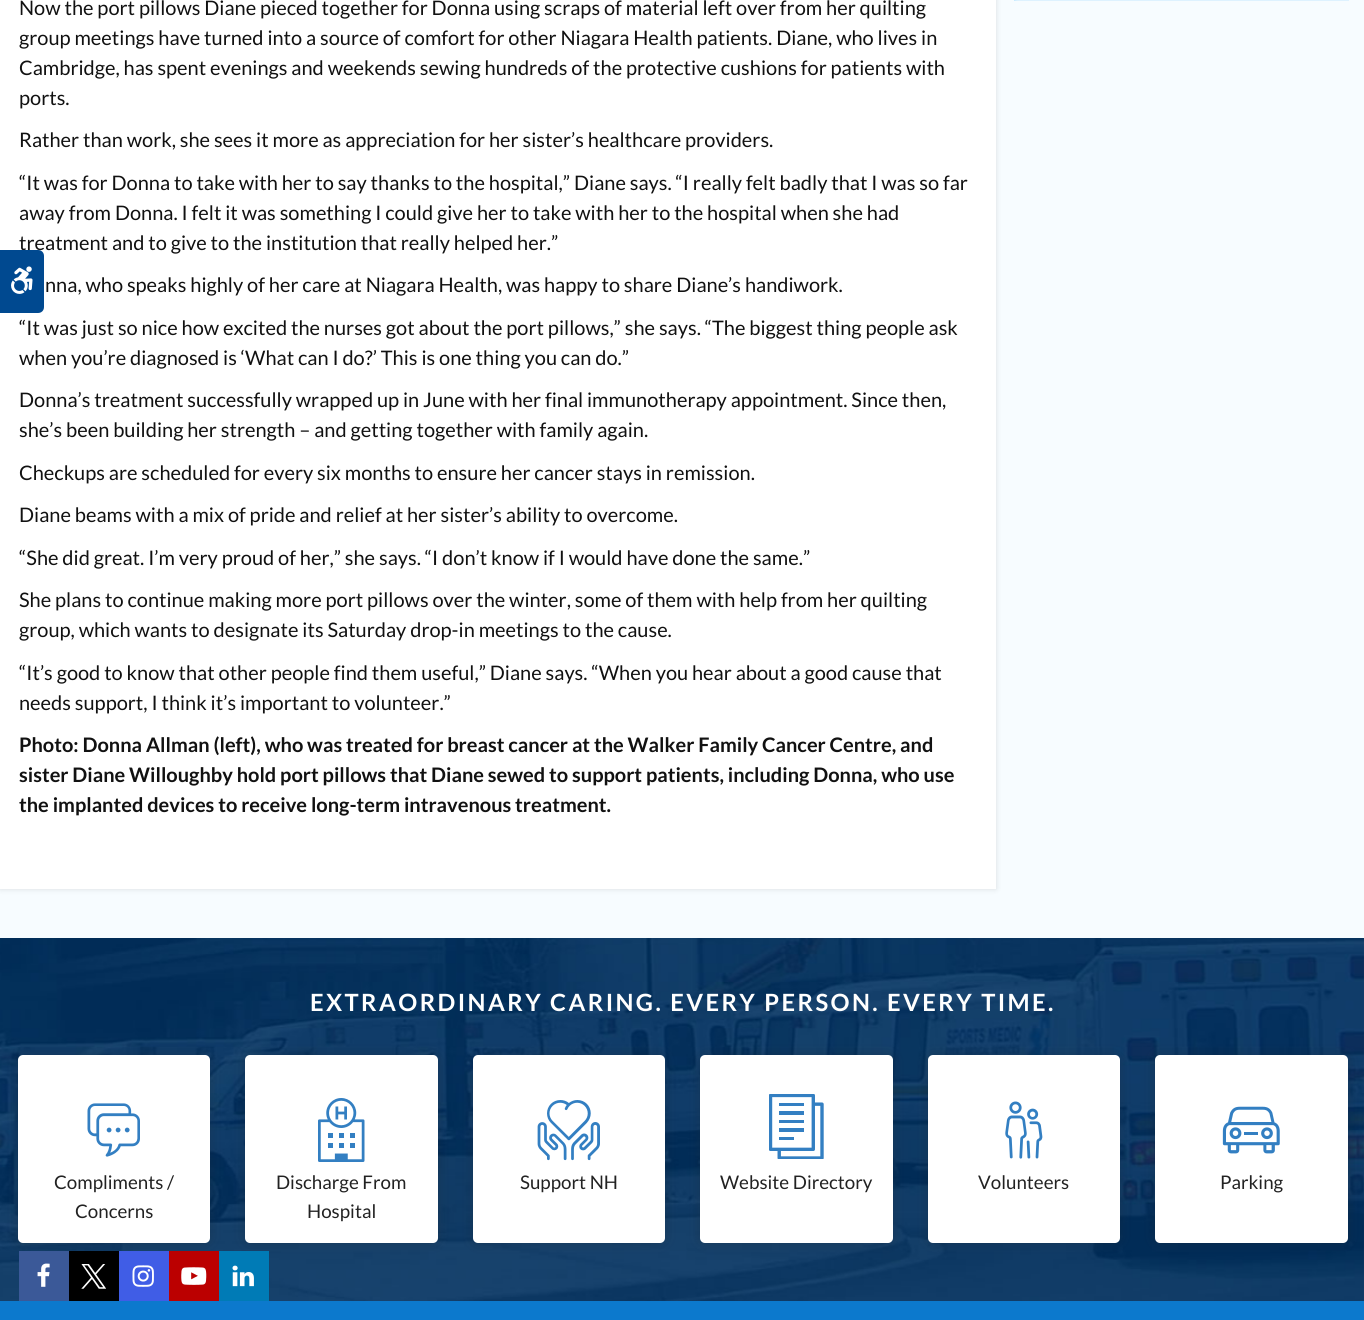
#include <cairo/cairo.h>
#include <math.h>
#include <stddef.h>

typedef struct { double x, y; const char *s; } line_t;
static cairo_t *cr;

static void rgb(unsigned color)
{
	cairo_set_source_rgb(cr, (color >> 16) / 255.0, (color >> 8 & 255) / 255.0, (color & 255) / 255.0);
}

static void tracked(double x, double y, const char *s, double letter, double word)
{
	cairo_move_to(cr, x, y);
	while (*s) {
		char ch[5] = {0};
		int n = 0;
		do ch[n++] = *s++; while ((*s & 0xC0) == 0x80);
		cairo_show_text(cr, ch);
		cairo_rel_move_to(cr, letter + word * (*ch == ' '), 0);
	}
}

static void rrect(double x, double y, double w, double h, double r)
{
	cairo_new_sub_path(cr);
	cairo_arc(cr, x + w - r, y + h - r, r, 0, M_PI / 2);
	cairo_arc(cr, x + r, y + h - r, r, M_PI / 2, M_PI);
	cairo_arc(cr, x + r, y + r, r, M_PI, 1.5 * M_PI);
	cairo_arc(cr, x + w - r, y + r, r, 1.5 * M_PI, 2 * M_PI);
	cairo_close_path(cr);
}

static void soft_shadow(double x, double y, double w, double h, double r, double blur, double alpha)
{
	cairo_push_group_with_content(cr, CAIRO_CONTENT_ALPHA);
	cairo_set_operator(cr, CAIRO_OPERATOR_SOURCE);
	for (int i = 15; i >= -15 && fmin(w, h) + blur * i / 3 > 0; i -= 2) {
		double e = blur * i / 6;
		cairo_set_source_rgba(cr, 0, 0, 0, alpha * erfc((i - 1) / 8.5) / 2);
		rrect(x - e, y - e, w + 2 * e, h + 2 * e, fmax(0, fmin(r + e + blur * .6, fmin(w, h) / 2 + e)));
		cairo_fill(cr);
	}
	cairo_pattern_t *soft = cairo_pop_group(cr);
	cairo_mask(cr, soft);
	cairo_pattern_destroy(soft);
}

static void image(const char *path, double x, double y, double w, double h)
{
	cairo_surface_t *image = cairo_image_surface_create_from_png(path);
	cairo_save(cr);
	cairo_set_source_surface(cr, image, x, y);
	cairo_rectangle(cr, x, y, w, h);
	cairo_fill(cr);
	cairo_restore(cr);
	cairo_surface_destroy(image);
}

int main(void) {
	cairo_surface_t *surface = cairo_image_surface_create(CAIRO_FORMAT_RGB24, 1364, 1320);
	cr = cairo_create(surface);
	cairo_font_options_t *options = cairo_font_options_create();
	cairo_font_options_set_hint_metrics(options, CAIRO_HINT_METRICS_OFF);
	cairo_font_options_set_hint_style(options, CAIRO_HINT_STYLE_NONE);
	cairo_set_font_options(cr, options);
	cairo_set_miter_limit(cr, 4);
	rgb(0xffffff);
	cairo_paint(cr);
	rgb(0xf7fcff);
	cairo_rectangle(cr, 0, 0, 1364, 939);
	cairo_fill(cr);
	rgb(0x333333);
	soft_shadow(0, -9, 996, 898, 0, 3, 0.15);
	rgb(0xffffff);
	cairo_rectangle(cr, 0, 0, 996, 889);
	cairo_fill(cr);
	rgb(0xdef2ff);
	cairo_rectangle(cr, 1348, 0, 1, 1);
	cairo_fill(cr);
	cairo_new_path(cr);
	cairo_move_to(cr, 1349, 1);
	cairo_line_to(cr, 1014, 1);
	cairo_line_to(cr, 1019, 0);
	cairo_line_to(cr, 1348, 0);
	cairo_close_path(cr);
	cairo_fill(cr);
	rgb(0xc4e9ff);
	cairo_new_path(cr);
	cairo_move_to(cr, 1014, 1);
	cairo_line_to(cr, 1014, -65);
	cairo_line_to(cr, 1019, -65);
	cairo_line_to(cr, 1019, 0);
	cairo_close_path(cr);
	cairo_fill(cr);
	image("img/2.png", 0, 938, 1364, 363);
	rgb(0x222222);
	soft_shadow(18, 1055, 192, 188, 5, 6, 0.25);
	rgb(0xffffff);
	rrect(18, 1055, 192, 188, 5);
	cairo_fill(cr);
	image("img/3.png", 87, 1103, 53, 54);
	rgb(0x222222);
	soft_shadow(245, 1055, 193, 188, 5, 6, 0.25);
	rgb(0xffffff);
	rrect(245, 1055, 193, 188, 5);
	cairo_fill(cr);
	image("img/4.png", 318, 1098, 47, 64);
	rgb(0x222222);
	soft_shadow(473, 1055, 192, 188, 5, 6, 0.25);
	rgb(0xffffff);
	rrect(473, 1055, 192, 188, 5);
	cairo_fill(cr);
	image("img/5.png", 537, 1100, 63, 61);
	rgb(0x222222);
	soft_shadow(700, 1055, 193, 188, 5, 6, 0.25);
	rgb(0xffffff);
	rrect(700, 1055, 193, 188, 5);
	cairo_fill(cr);
	image("img/6.png", 769, 1094, 55, 65);
	rgb(0x222222);
	soft_shadow(928, 1055, 192, 188, 5, 6, 0.25);
	rgb(0xffffff);
	rrect(928, 1055, 192, 188, 5);
	cairo_fill(cr);
	image("img/7.png", 1005, 1101, 38, 58);
	rgb(0x222222);
	soft_shadow(1155, 1055, 193, 188, 5, 6, 0.25);
	rgb(0xffffff);
	rrect(1155, 1055, 193, 188, 5);
	cairo_fill(cr);
	image("img/8.png", 1222, 1106, 58, 48);
	rgb(0x3b5998);
	cairo_rectangle(cr, 19, 1251, 50, 50);
	cairo_fill(cr);
	image("img/9.png", 37, 1263, 13, 24);
	rgb(0x000000);
	cairo_rectangle(cr, 69, 1251, 50, 50);
	cairo_fill(cr);
	image("img/10.png", 81, 1264, 25, 25);
	rgb(0x405de6);
	cairo_rectangle(cr, 119, 1251, 50, 50);
	cairo_fill(cr);
	image("img/11.png", 132, 1265, 22, 22);
	rgb(0xbb0000);
	cairo_rectangle(cr, 169, 1251, 50, 50);
	cairo_fill(cr);
	image("img/12.png", 181, 1267, 26, 18);
	rgb(0x007bb6);
	cairo_rectangle(cr, 219, 1251, 50, 50);
	cairo_fill(cr);
	image("img/13.png", 232, 1265, 22, 22);
	rgb(0x0c79cd);
	cairo_rectangle(cr, 0, 1301, 1364, 19);
	cairo_fill(cr);
	cairo_select_font_face(cr, "Lato", CAIRO_FONT_SLANT_NORMAL, CAIRO_FONT_WEIGHT_NORMAL);
	cairo_set_font_size(cr, 20);
	rgb(0x111111);
	{
		static const line_t items[] = {
			{19, 15, "Now the port pillows Diane pieced together for Donna using scraps of material left over from her quilting"},
			{19, 45, "group meetings have turned into a source of comfort for other Niagara Health patients. Diane, who lives in"},
			{19, 75, "Cambridge, has spent evenings and weekends sewing hundreds of the protective cushions for patients with"},
			{19, 105, "ports."},
			{19, 147, "Rather than work, she sees it more as appreciation for her sister’s healthcare providers."},
			{19, 190, "“It was for Donna to take with her to say thanks to the hospital,” Diane says. “I really felt badly that I was so far"},
			{19, 220, "away from Donna. I felt it was something I could give her to take with her to the hospital when she had"},
			{19, 250, "treatment and to give to the institution that really helped her.”"},
			{45, 292, "nna, who speaks highly of her care at Niagara Health, was happy to share Diane’s handiwork."},
			{19, 335, "“It was just so nice how excited the nurses got about the port pillows,” she says. “The biggest thing people ask"},
			{19, 365, "when you’re diagnosed is ‘What can I do?’ This is one thing you can do.”"},
			{19, 407, "Donna’s treatment successfully wrapped up in June with her final immunotherapy appointment. Since then,"},
			{19, 437, "she’s been building her strength – and getting together with family again."},
			{19, 480, "Checkups are scheduled for every six months to ensure her cancer stays in remission."},
			{19, 522, "Diane beams with a mix of pride and relief at her sister’s ability to overcome."},
			{19, 565, "“She did great. I’m very proud of her,” she says. “I don’t know if I would have done the same.”"},
			{19, 607, "She plans to continue making more port pillows over the winter, some of them with help from her quilting"},
			{19, 637, "group, which wants to designate its Saturday drop-in meetings to the cause."},
			{19, 680, "“It’s good to know that other people find them useful,” Diane says. “When you hear about a good cause that"},
			{19, 710, "needs support, I think it’s important to volunteer.”"},
		};
		for (size_t i = 0; i < sizeof items / sizeof *items; i++) {
			cairo_move_to(cr, items[i].x, items[i].y);
			cairo_show_text(cr, items[i].s);
		}
	}
	cairo_select_font_face(cr, "Lato", CAIRO_FONT_SLANT_NORMAL, CAIRO_FONT_WEIGHT_BOLD);
	{
		static const line_t items[] = {
			{19, 752, "Photo: Donna Allman (left), who was treated for breast cancer at the Walker Family Cancer Centre, and"},
			{19, 782, "sister Diane Willoughby hold port pillows that Diane sewed to support patients, including Donna, who use"},
			{19, 812, "the implanted devices to receive long-term intravenous treatment."},
		};
		for (size_t i = 0; i < sizeof items / sizeof *items; i++) {
			cairo_move_to(cr, items[i].x, items[i].y);
			cairo_show_text(cr, items[i].s);
		}
	}
	rgb(0x004990);
	cairo_new_path(cr);
	cairo_move_to(cr, 0, 250);
	cairo_line_to(cr, 38, 250);
	cairo_curve_to(cr, 41.5, 250, 44, 252.5, 44, 256);
	cairo_line_to(cr, 44, 307);
	cairo_curve_to(cr, 44, 310.5, 41.5, 313, 38, 313);
	cairo_line_to(cr, 0, 313);
	cairo_close_path(cr);
	cairo_fill(cr);
	image("img/1.png", 11, 266, 22, 28);
	cairo_set_font_size(cr, 23.75);
	rgb(0xffffff);
	tracked(310, 1011, "EXTRAORDINARY CARING. EVERY PERSON. EVERY TIME.", 2.4, 0);
	cairo_select_font_face(cr, "Lato", CAIRO_FONT_SLANT_NORMAL, CAIRO_FONT_WEIGHT_NORMAL);
	cairo_set_font_size(cr, 18.75);
	rgb(0x222222);
	{
		static const line_t items[] = {
			{54, 1189, "Compliments /"},
			{75, 1218, "Concerns"},
			{276, 1189, "Discharge From"},
			{307, 1218, "Hospital"},
			{520, 1189, "Support NH"},
			{720, 1189, "Website Directory"},
			{978, 1189, "Volunteers"},
			{1220, 1189, "Parking"},
		};
		for (size_t i = 0; i < sizeof items / sizeof *items; i++) {
			cairo_move_to(cr, items[i].x, items[i].y);
			cairo_show_text(cr, items[i].s);
		}
	}
	cairo_surface_write_to_png(surface, "page.png");
	cairo_font_options_destroy(options);
	cairo_destroy(cr);
	cairo_surface_destroy(surface);
	return 0;
}
